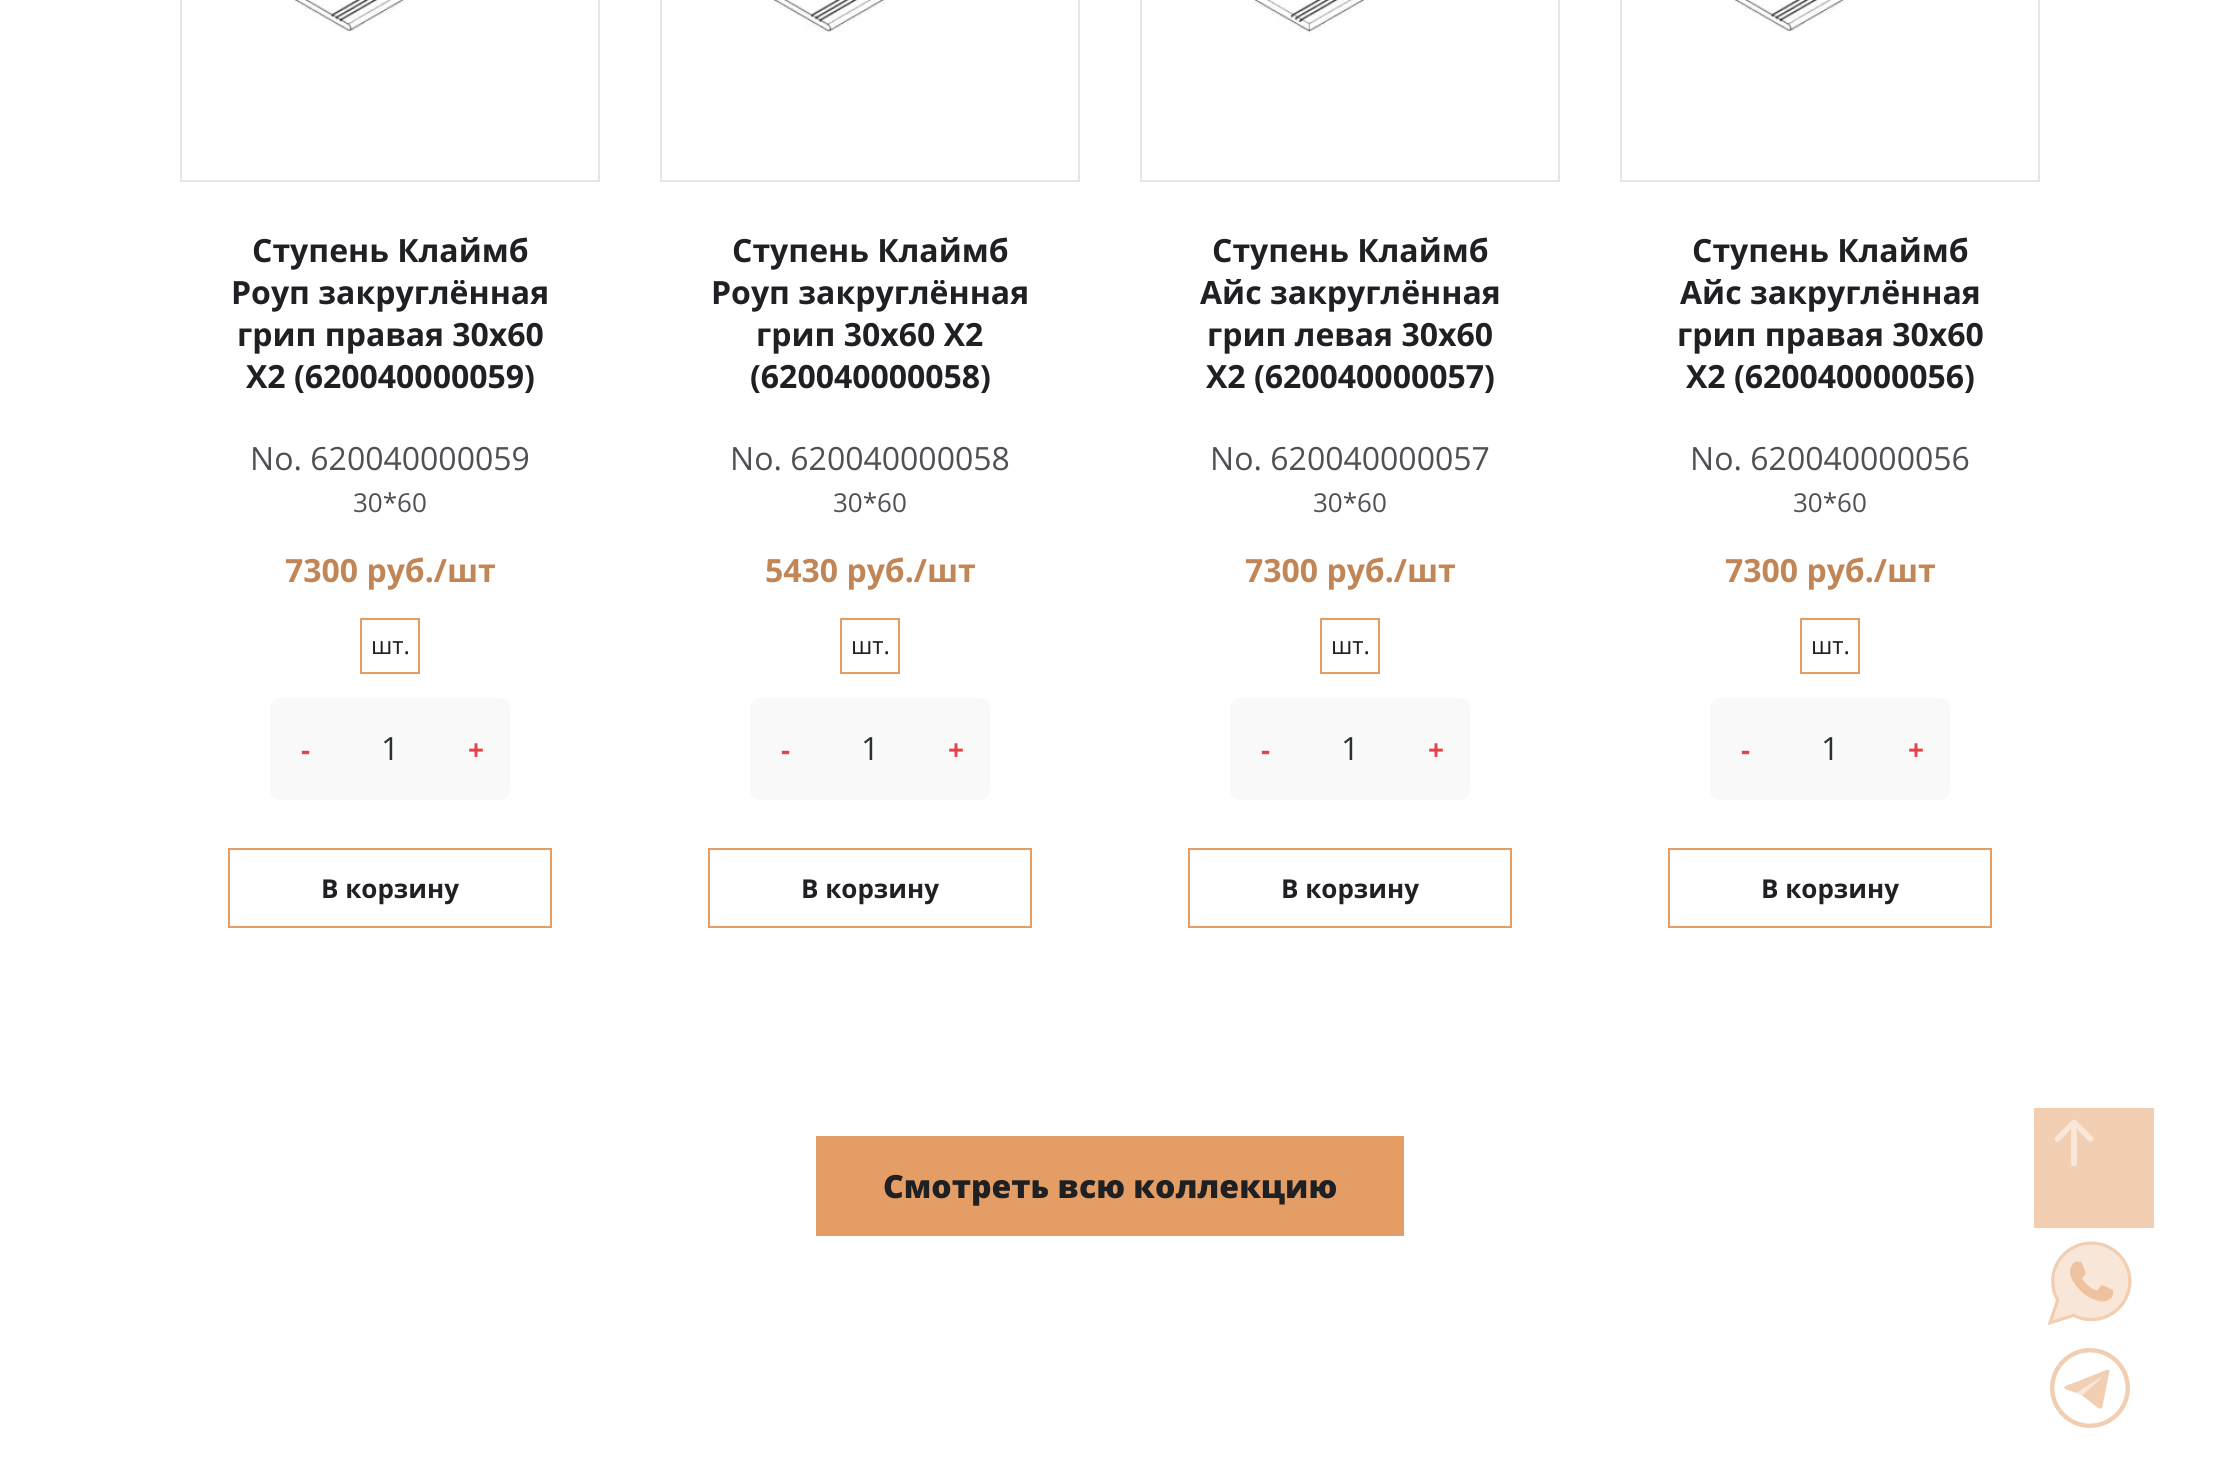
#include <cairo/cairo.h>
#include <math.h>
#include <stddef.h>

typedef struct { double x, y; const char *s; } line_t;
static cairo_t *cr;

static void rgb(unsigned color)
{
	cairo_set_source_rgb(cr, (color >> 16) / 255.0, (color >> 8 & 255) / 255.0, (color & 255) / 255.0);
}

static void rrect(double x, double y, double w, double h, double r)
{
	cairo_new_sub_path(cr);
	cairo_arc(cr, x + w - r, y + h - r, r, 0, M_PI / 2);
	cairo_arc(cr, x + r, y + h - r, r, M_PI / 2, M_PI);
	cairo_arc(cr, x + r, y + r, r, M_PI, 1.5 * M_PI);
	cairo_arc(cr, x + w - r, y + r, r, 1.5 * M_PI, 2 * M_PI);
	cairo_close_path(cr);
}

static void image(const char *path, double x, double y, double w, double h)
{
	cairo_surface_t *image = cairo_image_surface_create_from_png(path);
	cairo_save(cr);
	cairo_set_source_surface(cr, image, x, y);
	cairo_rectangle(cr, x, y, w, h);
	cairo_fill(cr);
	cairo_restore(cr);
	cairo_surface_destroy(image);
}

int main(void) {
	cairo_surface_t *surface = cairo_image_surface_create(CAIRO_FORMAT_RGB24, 2220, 1482);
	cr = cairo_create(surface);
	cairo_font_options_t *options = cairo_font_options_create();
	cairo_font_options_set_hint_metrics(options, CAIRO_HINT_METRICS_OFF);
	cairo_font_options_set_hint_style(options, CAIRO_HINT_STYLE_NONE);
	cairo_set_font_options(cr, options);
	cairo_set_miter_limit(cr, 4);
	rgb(0xffffff);
	cairo_paint(cr);
	cairo_rectangle(cr, 181, -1, 418, 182);
	rgb(0xe1e7ec);
	cairo_stroke(cr);
	image("img/1.png", 294, 0, 111, 31);
	cairo_rectangle(cr, 361, 619, 58, 54);
	rgb(0xe49d65);
	cairo_stroke(cr);
	rgb(0xf9f9f9);
	rrect(270, 698, 240, 102, 10);
	cairo_fill(cr);
	cairo_rectangle(cr, 229, 849, 322, 78);
	rgb(0xe49d65);
	cairo_stroke(cr);
	cairo_rectangle(cr, 661, -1, 418, 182);
	rgb(0xe1e7ec);
	cairo_stroke(cr);
	image("img/2.png", 772, 0, 114, 32);
	cairo_rectangle(cr, 841, 619, 58, 54);
	rgb(0xe49d65);
	cairo_stroke(cr);
	rgb(0xf9f9f9);
	rrect(750, 698, 240, 102, 10);
	cairo_fill(cr);
	cairo_rectangle(cr, 709, 849, 322, 78);
	rgb(0xe49d65);
	cairo_stroke(cr);
	cairo_rectangle(cr, 1141, -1, 418, 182);
	rgb(0xe1e7ec);
	cairo_stroke(cr);
	image("img/3.png", 1254, 0, 111, 35);
	cairo_rectangle(cr, 1321, 619, 58, 54);
	rgb(0xe49d65);
	cairo_stroke(cr);
	rgb(0xf9f9f9);
	rrect(1230, 698, 240, 102, 10);
	cairo_fill(cr);
	cairo_rectangle(cr, 1189, 849, 322, 78);
	rgb(0xe49d65);
	cairo_stroke(cr);
	cairo_rectangle(cr, 1621, -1, 418, 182);
	rgb(0xe1e7ec);
	cairo_stroke(cr);
	image("img/4.png", 1734, 0, 111, 31);
	cairo_rectangle(cr, 1801, 619, 58, 54);
	rgb(0xe49d65);
	cairo_stroke(cr);
	rgb(0xf9f9f9);
	rrect(1710, 698, 240, 102, 10);
	cairo_fill(cr);
	cairo_rectangle(cr, 1669, 849, 322, 78);
	rgb(0xe49d65);
	cairo_stroke(cr);
	cairo_rectangle(cr, 816, 1136, 588, 100);
	cairo_fill(cr);
	rgb(0xf2ceb2);
	cairo_rectangle(cr, 2034, 1108, 120, 120);
	cairo_fill(cr);
	image("img/5.png", 2054, 1119, 40, 48);
	image("img/6.png", 2047, 1241, 85, 85);
	image("img/7.png", 2050, 1348, 80, 80);
	cairo_select_font_face(cr, "Open Sans", CAIRO_FONT_SLANT_NORMAL, CAIRO_FONT_WEIGHT_BOLD);
	cairo_set_font_size(cr, 32);
	rgb(0x1f2024);
	{
		static const line_t items[] = {
			{252, 262, "Ступень Клаймб"},
			{231, 304, "Роуп закруглённая"},
			{237, 346, "грип правая 30x60"},
			{246, 388, "X2 (620040000059)"},
		};
		for (size_t i = 0; i < sizeof items / sizeof *items; i++) {
			cairo_move_to(cr, items[i].x, items[i].y);
			cairo_show_text(cr, items[i].s);
		}
	}
	cairo_select_font_face(cr, "Open Sans", CAIRO_FONT_SLANT_NORMAL, CAIRO_FONT_WEIGHT_NORMAL);
	rgb(0x4f5054);
	cairo_move_to(cr, 250, 470);
	cairo_show_text(cr, "No. 620040000059");
	cairo_set_font_size(cr, 26);
	cairo_move_to(cr, 353, 512);
	cairo_show_text(cr, "30*60");
	cairo_select_font_face(cr, "Open Sans", CAIRO_FONT_SLANT_NORMAL, CAIRO_FONT_WEIGHT_BOLD);
	cairo_set_font_size(cr, 32);
	rgb(0xc18556);
	cairo_move_to(cr, 285, 582);
	cairo_show_text(cr, "7300 руб./шт");
	cairo_select_font_face(cr, "Open Sans", CAIRO_FONT_SLANT_NORMAL, CAIRO_FONT_WEIGHT_NORMAL);
	cairo_set_font_size(cr, 24);
	rgb(0x1f2024);
	cairo_move_to(cr, 371, 654);
	cairo_show_text(cr, "шт.");
	cairo_select_font_face(cr, "Open Sans", CAIRO_FONT_SLANT_NORMAL, CAIRO_FONT_WEIGHT_BOLD);
	cairo_set_font_size(cr, 28);
	rgb(0xe04447);
	cairo_move_to(cr, 301, 760);
	cairo_show_text(cr, "-");
	cairo_select_font_face(cr, "Open Sans", CAIRO_FONT_SLANT_NORMAL, CAIRO_FONT_WEIGHT_NORMAL);
	cairo_set_font_size(cr, 32);
	rgb(0x293132);
	cairo_move_to(cr, 381, 760);
	cairo_show_text(cr, "1");
	cairo_select_font_face(cr, "Open Sans", CAIRO_FONT_SLANT_NORMAL, CAIRO_FONT_WEIGHT_BOLD);
	cairo_set_font_size(cr, 28);
	rgb(0xe04447);
	cairo_move_to(cr, 468, 760);
	cairo_show_text(cr, "+");
	cairo_set_font_size(cr, 26);
	rgb(0x1f2024);
	cairo_move_to(cr, 321, 898);
	cairo_show_text(cr, "В корзину");
	cairo_set_font_size(cr, 32);
	{
		static const line_t items[] = {
			{732, 262, "Ступень Клаймб"},
			{711, 304, "Роуп закруглённая"},
			{756, 346, "грип 30x60 X2"},
			{750, 388, "(620040000058)"},
		};
		for (size_t i = 0; i < sizeof items / sizeof *items; i++) {
			cairo_move_to(cr, items[i].x, items[i].y);
			cairo_show_text(cr, items[i].s);
		}
	}
	cairo_select_font_face(cr, "Open Sans", CAIRO_FONT_SLANT_NORMAL, CAIRO_FONT_WEIGHT_NORMAL);
	rgb(0x4f5054);
	cairo_move_to(cr, 730, 470);
	cairo_show_text(cr, "No. 620040000058");
	cairo_set_font_size(cr, 26);
	cairo_move_to(cr, 833, 512);
	cairo_show_text(cr, "30*60");
	cairo_select_font_face(cr, "Open Sans", CAIRO_FONT_SLANT_NORMAL, CAIRO_FONT_WEIGHT_BOLD);
	cairo_set_font_size(cr, 32);
	rgb(0xc18556);
	cairo_move_to(cr, 765, 582);
	cairo_show_text(cr, "5430 руб./шт");
	cairo_select_font_face(cr, "Open Sans", CAIRO_FONT_SLANT_NORMAL, CAIRO_FONT_WEIGHT_NORMAL);
	cairo_set_font_size(cr, 24);
	rgb(0x1f2024);
	cairo_move_to(cr, 851, 654);
	cairo_show_text(cr, "шт.");
	cairo_select_font_face(cr, "Open Sans", CAIRO_FONT_SLANT_NORMAL, CAIRO_FONT_WEIGHT_BOLD);
	cairo_set_font_size(cr, 28);
	rgb(0xe04447);
	cairo_move_to(cr, 781, 760);
	cairo_show_text(cr, "-");
	cairo_select_font_face(cr, "Open Sans", CAIRO_FONT_SLANT_NORMAL, CAIRO_FONT_WEIGHT_NORMAL);
	cairo_set_font_size(cr, 32);
	rgb(0x293132);
	cairo_move_to(cr, 861, 760);
	cairo_show_text(cr, "1");
	cairo_select_font_face(cr, "Open Sans", CAIRO_FONT_SLANT_NORMAL, CAIRO_FONT_WEIGHT_BOLD);
	cairo_set_font_size(cr, 28);
	rgb(0xe04447);
	cairo_move_to(cr, 948, 760);
	cairo_show_text(cr, "+");
	cairo_set_font_size(cr, 26);
	rgb(0x1f2024);
	cairo_move_to(cr, 801, 898);
	cairo_show_text(cr, "В корзину");
	cairo_set_font_size(cr, 32);
	{
		static const line_t items[] = {
			{1212, 262, "Ступень Клаймб"},
			{1200, 304, "Айс закруглённая"},
			{1207, 346, "грип левая 30x60"},
			{1206, 388, "X2 (620040000057)"},
		};
		for (size_t i = 0; i < sizeof items / sizeof *items; i++) {
			cairo_move_to(cr, items[i].x, items[i].y);
			cairo_show_text(cr, items[i].s);
		}
	}
	cairo_select_font_face(cr, "Open Sans", CAIRO_FONT_SLANT_NORMAL, CAIRO_FONT_WEIGHT_NORMAL);
	rgb(0x4f5054);
	cairo_move_to(cr, 1210, 470);
	cairo_show_text(cr, "No. 620040000057");
	cairo_set_font_size(cr, 26);
	cairo_move_to(cr, 1313, 512);
	cairo_show_text(cr, "30*60");
	cairo_select_font_face(cr, "Open Sans", CAIRO_FONT_SLANT_NORMAL, CAIRO_FONT_WEIGHT_BOLD);
	cairo_set_font_size(cr, 32);
	rgb(0xc18556);
	cairo_move_to(cr, 1245, 582);
	cairo_show_text(cr, "7300 руб./шт");
	cairo_select_font_face(cr, "Open Sans", CAIRO_FONT_SLANT_NORMAL, CAIRO_FONT_WEIGHT_NORMAL);
	cairo_set_font_size(cr, 24);
	rgb(0x1f2024);
	cairo_move_to(cr, 1331, 654);
	cairo_show_text(cr, "шт.");
	cairo_select_font_face(cr, "Open Sans", CAIRO_FONT_SLANT_NORMAL, CAIRO_FONT_WEIGHT_BOLD);
	cairo_set_font_size(cr, 28);
	rgb(0xe04447);
	cairo_move_to(cr, 1261, 760);
	cairo_show_text(cr, "-");
	cairo_select_font_face(cr, "Open Sans", CAIRO_FONT_SLANT_NORMAL, CAIRO_FONT_WEIGHT_NORMAL);
	cairo_set_font_size(cr, 32);
	rgb(0x293132);
	cairo_move_to(cr, 1341, 760);
	cairo_show_text(cr, "1");
	cairo_select_font_face(cr, "Open Sans", CAIRO_FONT_SLANT_NORMAL, CAIRO_FONT_WEIGHT_BOLD);
	cairo_set_font_size(cr, 28);
	rgb(0xe04447);
	cairo_move_to(cr, 1428, 760);
	cairo_show_text(cr, "+");
	cairo_set_font_size(cr, 26);
	rgb(0x1f2024);
	cairo_move_to(cr, 1281, 898);
	cairo_show_text(cr, "В корзину");
	cairo_set_font_size(cr, 32);
	{
		static const line_t items[] = {
			{1692, 262, "Ступень Клаймб"},
			{1680, 304, "Айс закруглённая"},
			{1677, 346, "грип правая 30x60"},
			{1686, 388, "X2 (620040000056)"},
		};
		for (size_t i = 0; i < sizeof items / sizeof *items; i++) {
			cairo_move_to(cr, items[i].x, items[i].y);
			cairo_show_text(cr, items[i].s);
		}
	}
	cairo_select_font_face(cr, "Open Sans", CAIRO_FONT_SLANT_NORMAL, CAIRO_FONT_WEIGHT_NORMAL);
	rgb(0x4f5054);
	cairo_move_to(cr, 1690, 470);
	cairo_show_text(cr, "No. 620040000056");
	cairo_set_font_size(cr, 26);
	cairo_move_to(cr, 1793, 512);
	cairo_show_text(cr, "30*60");
	cairo_select_font_face(cr, "Open Sans", CAIRO_FONT_SLANT_NORMAL, CAIRO_FONT_WEIGHT_BOLD);
	cairo_set_font_size(cr, 32);
	rgb(0xc18556);
	cairo_move_to(cr, 1725, 582);
	cairo_show_text(cr, "7300 руб./шт");
	cairo_select_font_face(cr, "Open Sans", CAIRO_FONT_SLANT_NORMAL, CAIRO_FONT_WEIGHT_NORMAL);
	cairo_set_font_size(cr, 24);
	rgb(0x1f2024);
	cairo_move_to(cr, 1811, 654);
	cairo_show_text(cr, "шт.");
	cairo_select_font_face(cr, "Open Sans", CAIRO_FONT_SLANT_NORMAL, CAIRO_FONT_WEIGHT_BOLD);
	cairo_set_font_size(cr, 28);
	rgb(0xe04447);
	cairo_move_to(cr, 1741, 760);
	cairo_show_text(cr, "-");
	cairo_select_font_face(cr, "Open Sans", CAIRO_FONT_SLANT_NORMAL, CAIRO_FONT_WEIGHT_NORMAL);
	cairo_set_font_size(cr, 32);
	rgb(0x293132);
	cairo_move_to(cr, 1821, 760);
	cairo_show_text(cr, "1");
	cairo_select_font_face(cr, "Open Sans", CAIRO_FONT_SLANT_NORMAL, CAIRO_FONT_WEIGHT_BOLD);
	cairo_set_font_size(cr, 28);
	rgb(0xe04447);
	cairo_move_to(cr, 1908, 760);
	cairo_show_text(cr, "+");
	cairo_set_font_size(cr, 26);
	rgb(0x1f2024);
	cairo_move_to(cr, 1761, 898);
	cairo_show_text(cr, "В корзину");
	cairo_select_font_face(cr, "Open Sans ExtraBold", CAIRO_FONT_SLANT_NORMAL, CAIRO_FONT_WEIGHT_NORMAL);
	cairo_set_font_size(cr, 32);
	cairo_move_to(cr, 883, 1198);
	cairo_show_text(cr, "Смотреть всю коллекцию");
	cairo_surface_write_to_png(surface, "page.png");
	cairo_font_options_destroy(options);
	cairo_destroy(cr);
	cairo_surface_destroy(surface);
	return 0;
}
